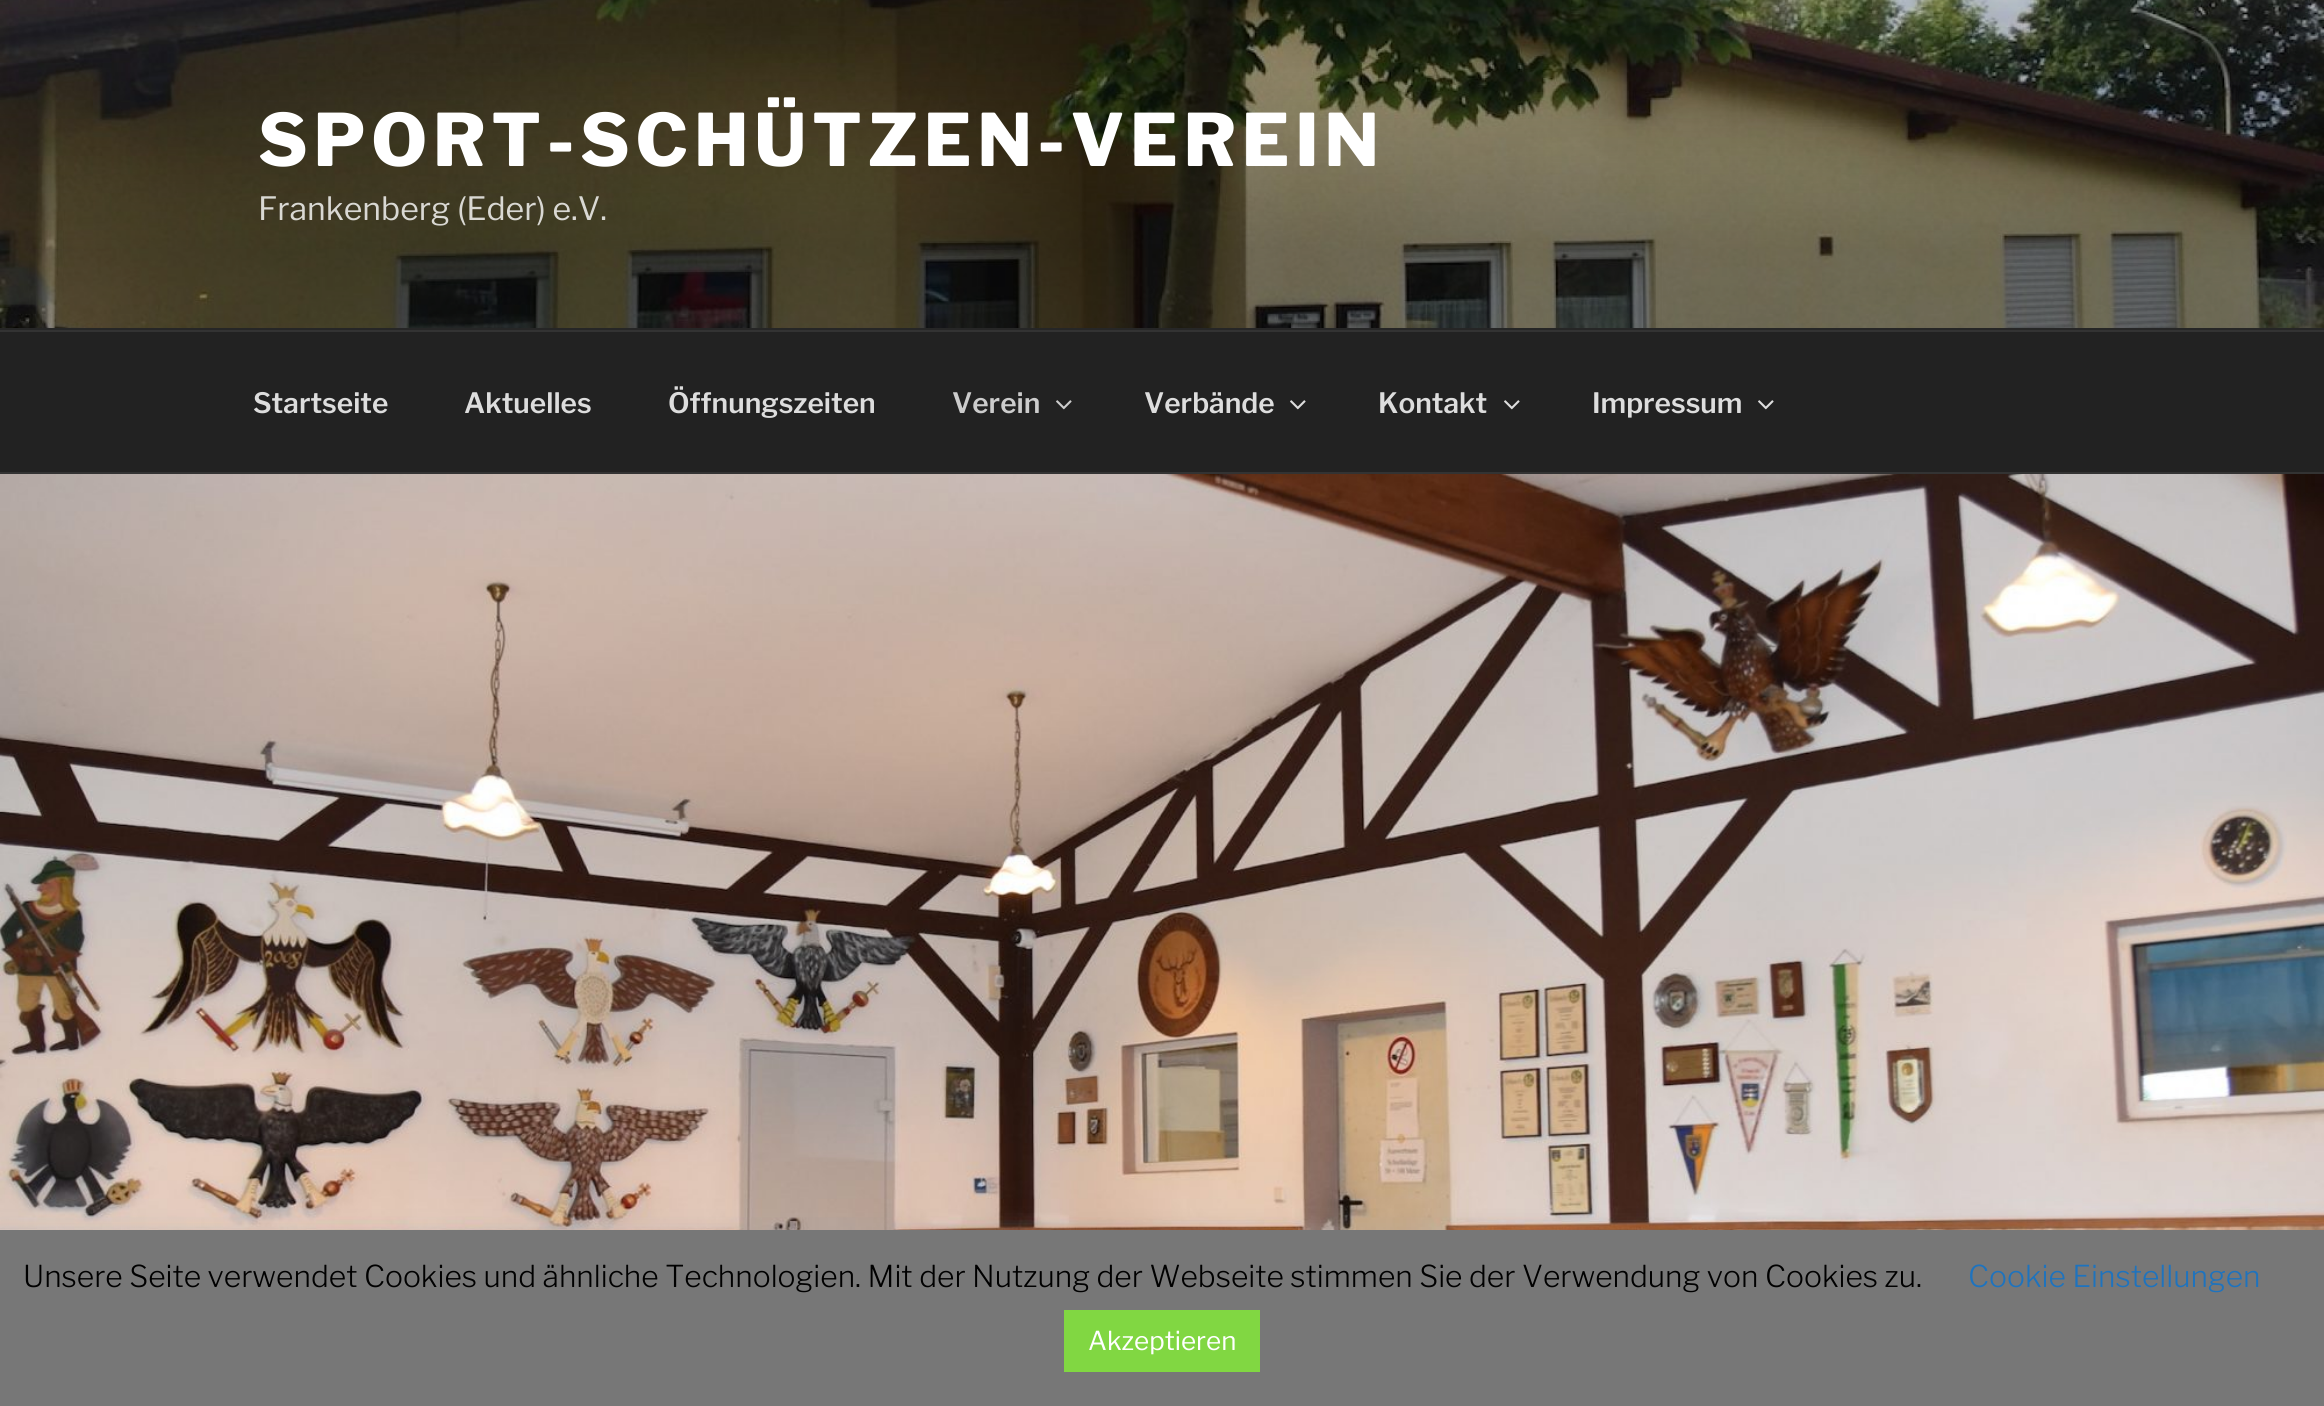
#include <cairo/cairo.h>
#include <math.h>
#include <stddef.h>

typedef struct { double x, y; const char *s; } line_t;
typedef struct { double x, y, w, h; unsigned color; } box_t;
static cairo_t *cr;

static void rgb(unsigned color)
{
	cairo_set_source_rgb(cr, (color >> 16) / 255.0, (color >> 8 & 255) / 255.0, (color & 255) / 255.0);
}

static void tracked(double x, double y, const char *s, double letter, double word)
{
	cairo_move_to(cr, x, y);
	while (*s) {
		char ch[5] = {0};
		int n = 0;
		do ch[n++] = *s++; while ((*s & 0xC0) == 0x80);
		cairo_show_text(cr, ch);
		cairo_rel_move_to(cr, letter + word * (*ch == ' '), 0);
	}
}

static void rrect(double x, double y, double w, double h, double r)
{
	cairo_new_sub_path(cr);
	cairo_arc(cr, x + w - r, y + h - r, r, 0, M_PI / 2);
	cairo_arc(cr, x + r, y + h - r, r, M_PI / 2, M_PI);
	cairo_arc(cr, x + r, y + r, r, M_PI, 1.5 * M_PI);
	cairo_arc(cr, x + w - r, y + r, r, 1.5 * M_PI, 2 * M_PI);
	cairo_close_path(cr);
}

static void soft_shadow(double x, double y, double w, double h, double r, double blur, double alpha)
{
	cairo_push_group_with_content(cr, CAIRO_CONTENT_ALPHA);
	cairo_set_operator(cr, CAIRO_OPERATOR_SOURCE);
	for (int i = 15; i >= -15 && fmin(w, h) + blur * i / 3 > 0; i -= 2) {
		double e = blur * i / 6;
		cairo_set_source_rgba(cr, 0, 0, 0, alpha * erfc((i - 1) / 8.5) / 2);
		rrect(x - e, y - e, w + 2 * e, h + 2 * e, fmax(0, fmin(r + e + blur * .6, fmin(w, h) / 2 + e)));
		cairo_fill(cr);
	}
	cairo_pattern_t *soft = cairo_pop_group(cr);
	cairo_mask(cr, soft);
	cairo_pattern_destroy(soft);
}

static void image(const char *path, double x, double y, double w, double h)
{
	cairo_surface_t *image = cairo_image_surface_create_from_png(path);
	cairo_save(cr);
	cairo_set_source_surface(cr, image, x, y);
	cairo_rectangle(cr, x, y, w, h);
	cairo_fill(cr);
	cairo_restore(cr);
	cairo_surface_destroy(image);
}

int main(void) {
	cairo_surface_t *surface = cairo_image_surface_create(CAIRO_FORMAT_RGB24, 2324, 1406);
	cr = cairo_create(surface);
	cairo_font_options_t *options = cairo_font_options_create();
	cairo_font_options_set_hint_metrics(options, CAIRO_HINT_METRICS_OFF);
	cairo_font_options_set_hint_style(options, CAIRO_HINT_STYLE_NONE);
	cairo_set_font_options(cr, options);
	cairo_set_miter_limit(cr, 4);
	rgb(0xffffff);
	cairo_paint(cr);
	rgb(0x262626);
	cairo_rectangle(cr, 0, 328, 2324, 2);
	cairo_fill(cr);
	image("img/1.png", 0, 0, 2324, 328);
	{
		static const box_t items[] = {
			{0, 332, 2324, 140, 0x222222},
			{0, 330, 2324, 2, 0x333333},
			{0, 472, 2324, 2, 0x333333},
		};
		for (size_t i = 0; i < sizeof items / sizeof *items; i++) {
			rgb(items[i].color);
			cairo_rectangle(cr, items[i].x, items[i].y, items[i].w, items[i].h);
			cairo_fill(cr);
		}
	}
	image("img/2.png", 1056, 400, 16, 10);
	image("img/3.png", 1290, 400, 16, 10);
	image("img/3.png", 1504, 400, 16, 10);
	image("img/3.png", 1758, 400, 16, 10);
	image("img/4.png", 0, 474, 2324, 756);
	rgb(0xacabab);
	soft_shadow(0, 1228, 2324, 176, 0, 10, 0.3);
	rgb(0x777777);
	cairo_rectangle(cr, 0, 1230, 2324, 176);
	cairo_fill(cr);
	rgb(0x81d742);
	cairo_rectangle(cr, 1064, 1310, 196, 62);
	cairo_fill(cr);
	cairo_select_font_face(cr, "Libre Franklin ExtraBold", CAIRO_FONT_SLANT_NORMAL, CAIRO_FONT_WEIGHT_NORMAL);
	cairo_set_font_size(cr, 72);
	rgb(0xffffff);
	tracked(258, 166, "SPORT-SCHÜTZEN-VEREIN", 5.75, 0);
	cairo_select_font_face(cr, "Libre Franklin", CAIRO_FONT_SLANT_NORMAL, CAIRO_FONT_WEIGHT_NORMAL);
	cairo_set_font_size(cr, 32);
	rgb(0xd9d8d3);
	cairo_move_to(cr, 258, 220);
	cairo_show_text(cr, "Frankenberg (Eder) e.V.");
	cairo_select_font_face(cr, "Libre Franklin SemiBold", CAIRO_FONT_SLANT_NORMAL, CAIRO_FONT_WEIGHT_NORMAL);
	cairo_set_font_size(cr, 28);
	rgb(0xdddddd);
	{
		static const line_t items[] = {
			{253, 413, "Startseite"},
			{464, 413, "Aktuelles"},
			{668, 413, "Öffnungszeiten"},
		};
		for (size_t i = 0; i < sizeof items / sizeof *items; i++) {
			cairo_move_to(cr, items[i].x, items[i].y);
			cairo_show_text(cr, items[i].s);
		}
	}
	rgb(0xcccccc);
	cairo_move_to(cr, 952, 413);
	cairo_show_text(cr, "Verein");
	rgb(0xdddddd);
	{
		static const line_t items[] = {
			{1144, 413, "Verbände"},
			{1378, 413, "Kontakt"},
			{1592, 413, "Impressum"},
		};
		for (size_t i = 0; i < sizeof items / sizeof *items; i++) {
			cairo_move_to(cr, items[i].x, items[i].y);
			cairo_show_text(cr, items[i].s);
		}
	}
	cairo_select_font_face(cr, "Libre Franklin Light", CAIRO_FONT_SLANT_NORMAL, CAIRO_FONT_WEIGHT_NORMAL);
	cairo_set_font_size(cr, 30);
	rgb(0x000000);
	cairo_move_to(cr, 23, 1287);
	cairo_show_text(cr, "Unsere Seite verwendet Cookies und ähnliche Technologien. Mit der Nutzung der Webseite stimmen Sie der Verwendung von Cookies zu.");
	rgb(0x1e73be);
	cairo_move_to(cr, 1968, 1287);
	cairo_show_text(cr, "Cookie Einstellungen");
	cairo_select_font_face(cr, "Libre Franklin", CAIRO_FONT_SLANT_NORMAL, CAIRO_FONT_WEIGHT_NORMAL);
	cairo_set_font_size(cr, 26);
	rgb(0xffffff);
	cairo_move_to(cr, 1088, 1350);
	cairo_show_text(cr, "Akzeptieren");
	cairo_surface_write_to_png(surface, "page.png");
	cairo_font_options_destroy(options);
	cairo_destroy(cr);
	cairo_surface_destroy(surface);
	return 0;
}
